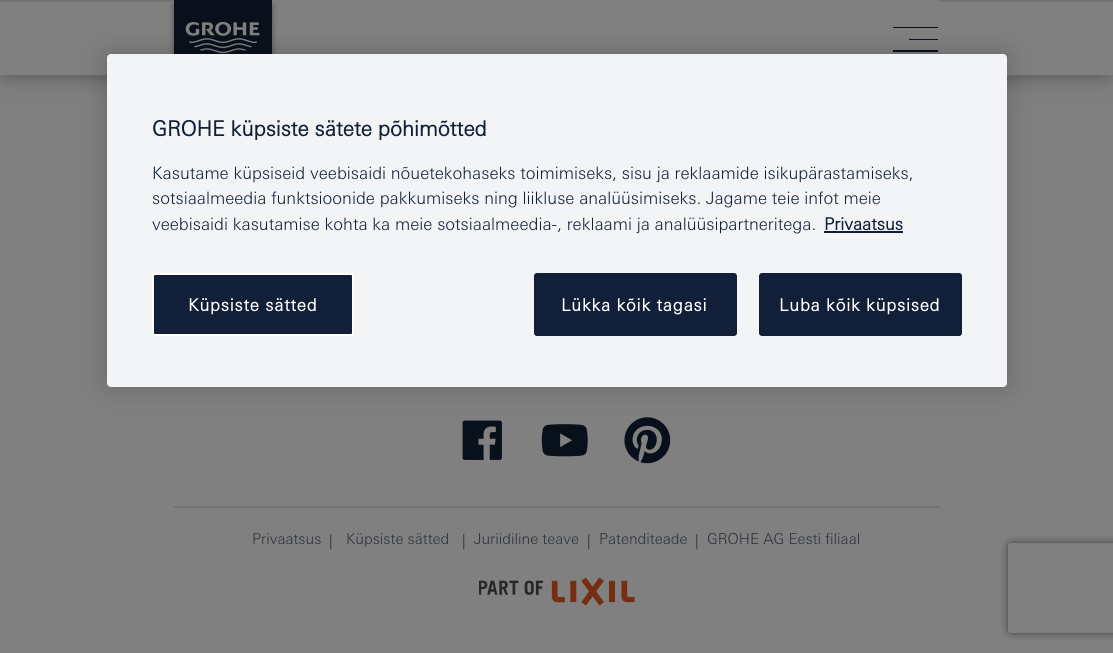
#include <cairo/cairo.h>
#include <math.h>
#include <stddef.h>

typedef struct { double x, y; const char *s; } line_t;
typedef struct { double x, y, w, h; unsigned color; } box_t;
static cairo_t *cr;

static void rgb(unsigned color)
{
	cairo_set_source_rgb(cr, (color >> 16) / 255.0, (color >> 8 & 255) / 255.0, (color & 255) / 255.0);
}

static void tracked(double x, double y, const char *s, double letter, double word)
{
	cairo_move_to(cr, x, y);
	while (*s) {
		char ch[5] = {0};
		int n = 0;
		do ch[n++] = *s++; while ((*s & 0xC0) == 0x80);
		cairo_show_text(cr, ch);
		cairo_rel_move_to(cr, letter + word * (*ch == ' '), 0);
	}
}

static void rrect(double x, double y, double w, double h, double r)
{
	cairo_new_sub_path(cr);
	cairo_arc(cr, x + w - r, y + h - r, r, 0, M_PI / 2);
	cairo_arc(cr, x + r, y + h - r, r, M_PI / 2, M_PI);
	cairo_arc(cr, x + r, y + r, r, M_PI, 1.5 * M_PI);
	cairo_arc(cr, x + w - r, y + r, r, 1.5 * M_PI, 2 * M_PI);
	cairo_close_path(cr);
}

static void soft_shadow(double x, double y, double w, double h, double r, double blur, double alpha)
{
	cairo_push_group_with_content(cr, CAIRO_CONTENT_ALPHA);
	cairo_set_operator(cr, CAIRO_OPERATOR_SOURCE);
	for (int i = 15; i >= -15 && fmin(w, h) + blur * i / 3 > 0; i -= 2) {
		double e = blur * i / 6;
		cairo_set_source_rgba(cr, 0, 0, 0, alpha * erfc((i - 1) / 8.5) / 2);
		rrect(x - e, y - e, w + 2 * e, h + 2 * e, fmax(0, fmin(r + e + blur * .6, fmin(w, h) / 2 + e)));
		cairo_fill(cr);
	}
	cairo_pattern_t *soft = cairo_pop_group(cr);
	cairo_mask(cr, soft);
	cairo_pattern_destroy(soft);
}

static void image(const char *path, double x, double y, double w, double h)
{
	cairo_surface_t *image = cairo_image_surface_create_from_png(path);
	cairo_save(cr);
	cairo_set_source_surface(cr, image, x, y);
	cairo_rectangle(cr, x, y, w, h);
	cairo_fill(cr);
	cairo_restore(cr);
	cairo_surface_destroy(image);
}

int main(void) {
	cairo_surface_t *surface = cairo_image_surface_create(CAIRO_FORMAT_RGB24, 1113, 653);
	cr = cairo_create(surface);
	cairo_font_options_t *options = cairo_font_options_create();
	cairo_font_options_set_hint_metrics(options, CAIRO_HINT_METRICS_OFF);
	cairo_font_options_set_hint_style(options, CAIRO_HINT_STYLE_NONE);
	cairo_set_font_options(cr, options);
	cairo_set_miter_limit(cr, 4);
	rgb(0x808080);
	cairo_paint(cr);
	rgb(0x000000);
	soft_shadow(15, 20, 1083, 45, 0, 18, 0.4);
	soft_shadow(0, 6, 1113, 75, 0, 4, 0.1);
	{
		static const box_t items[] = {
			{0, 2, 1113, 73, 0x808080},
			{0, 0, 1113, 2, 0x737373},
			{272, 0, 667, 2, 0x808080},
		};
		for (size_t i = 0; i < sizeof items / sizeof *items; i++) {
			rgb(items[i].color);
			cairo_rectangle(cr, items[i].x, items[i].y, items[i].w, items[i].h);
			cairo_fill(cr);
		}
	}
	rgb(0x000000);
	soft_shadow(174, 5, 98, 75, 0, 3, 0.4);
	rgb(0x09101c);
	cairo_rectangle(cr, 174, 0, 98, 54);
	cairo_fill(cr);
	image("img/1.png", 185, 21, 75, 33);
	cairo_save(cr);
	cairo_rectangle(cr, 893, 27, 46, 26);
	cairo_clip(cr);
	cairo_new_path(cr);
	cairo_move_to(cr, 892, 27);
	cairo_line_to(cr, 938, 27);
	cairo_line_to(cr, 938, 28);
	cairo_line_to(cr, 892, 28);
	cairo_close_path(cr);
	cairo_move_to(cr, 909, 39);
	cairo_line_to(cr, 938, 39);
	cairo_line_to(cr, 938, 40);
	cairo_line_to(cr, 909, 40);
	cairo_close_path(cr);
	cairo_move_to(cr, 892, 50);
	cairo_line_to(cr, 938, 50);
	cairo_line_to(cr, 938, 52);
	cairo_line_to(cr, 892, 52);
	cairo_close_path(cr);
	cairo_fill(cr);
	cairo_restore(cr);
	image("img/2.png", 462, 420, 40, 40);
	image("img/3.png", 541, 424, 47, 33);
	image("img/4.png", 624, 417, 47, 47);
	rgb(0x000000);
	soft_shadow(107, 54, 900, 333, 4, 13.5, 0.2);
	rgb(0xf2f4f6);
	rrect(107, 54, 900, 333, 4);
	cairo_fill(cr);
	rgb(0x112038);
	cairo_rectangle(cr, 824, 231, 79, 2);
	cairo_fill(cr);
	rrect(153, 274, 200, 61, 2);
	cairo_fill_preserve(cr);
	rgb(0xffffff);
	cairo_stroke(cr);
	rgb(0x112038);
	rrect(535, 274, 201, 61, 2);
	cairo_fill_preserve(cr);
	cairo_stroke(cr);
	rrect(760, 274, 201, 61, 2);
	cairo_fill_preserve(cr);
	cairo_stroke(cr);
	rgb(0x737373);
	cairo_rectangle(cr, 174, 506, 765, 2);
	cairo_fill(cr);
	image("img/5.png", 479, 578, 156, 28);
	cairo_save(cr);
	cairo_set_fill_rule(cr, CAIRO_FILL_RULE_EVEN_ODD);
	cairo_new_path(cr);
	cairo_move_to(cr, 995, 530);
	cairo_line_to(cr, 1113, 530);
	cairo_line_to(cr, 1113, 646);
	cairo_line_to(cr, 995, 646);
	cairo_close_path(cr);
	cairo_move_to(cr, 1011, 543);
	cairo_line_to(cr, 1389, 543);
	cairo_curve_to(cr, 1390.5, 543, 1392, 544.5, 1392, 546);
	cairo_line_to(cr, 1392, 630);
	cairo_curve_to(cr, 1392, 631.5, 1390.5, 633, 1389, 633);
	cairo_line_to(cr, 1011, 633);
	cairo_curve_to(cr, 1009.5, 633, 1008, 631.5, 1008, 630);
	cairo_line_to(cr, 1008, 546);
	cairo_curve_to(cr, 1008, 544.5, 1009.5, 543, 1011, 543);
	cairo_close_path(cr);
	cairo_clip(cr);
	rgb(0x404040);
	soft_shadow(1008, 543, 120, 90, 3, 4, 1);
	cairo_restore(cr);
	cairo_select_font_face(cr, "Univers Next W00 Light", CAIRO_FONT_SLANT_NORMAL, CAIRO_FONT_WEIGHT_BOLD);
	cairo_set_font_size(cr, 21);
	rgb(0x112038);
	cairo_move_to(cr, 152, 136);
	cairo_show_text(cr, "GROHE küpsiste sätete põhimõtted");
	cairo_select_font_face(cr, "Univers Next W00 Light Light", CAIRO_FONT_SLANT_NORMAL, CAIRO_FONT_WEIGHT_NORMAL);
	cairo_set_font_size(cr, 17.05);
	{
		static const line_t items[] = {
			{152, 179, "Kasutame küpsiseid veebisaidi nõuetekohaseks toimimiseks, sisu ja reklaamide isikupärastamiseks,"},
			{152, 204, "sotsiaalmeedia funktsioonide pakkumiseks ning liikluse analüüsimiseks. Jagame teie infot meie"},
			{152, 230, "veebisaidi kasutamise kohta ka meie sotsiaalmeedia-, reklaami ja analüüsipartneritega."},
		};
		for (size_t i = 0; i < sizeof items / sizeof *items; i++) {
			cairo_move_to(cr, items[i].x, items[i].y);
			cairo_show_text(cr, items[i].s);
		}
	}
	cairo_select_font_face(cr, "Univers Next W00 Light", CAIRO_FONT_SLANT_NORMAL, CAIRO_FONT_WEIGHT_BOLD);
	cairo_move_to(cr, 824, 230);
	cairo_show_text(cr, "Privaatsus");
	rgb(0xffffff);
	{
		static const line_t items[] = {
			{188, 311, "Küpsiste sätted"},
			{561, 311, "Lükka kõik tagasi"},
			{779, 311, "Luba kõik küpsised"},
		};
		for (size_t i = 0; i < sizeof items / sizeof *items; i++) {
			tracked(items[i].x, items[i].y, items[i].s, 0.8, 0);
		}
	}
	cairo_select_font_face(cr, "Univers Next W00 Light Light", CAIRO_FONT_SLANT_NORMAL, CAIRO_FONT_WEIGHT_NORMAL);
	cairo_set_font_size(cr, 15);
	rgb(0x2c323a);
	{
		static const line_t items[] = {
			{252, 544, "Privaatsus"},
			{329, 546, "|"},
			{346, 544, "Küpsiste sätted"},
			{462, 546, "|"},
			{474, 544, "Juriidiline teave"},
			{587, 546, "|"},
			{599, 544, "Patenditeade"},
			{695, 546, "|"},
			{707, 544, "GROHE AG Eesti filiaal"},
		};
		for (size_t i = 0; i < sizeof items / sizeof *items; i++) {
			cairo_move_to(cr, items[i].x, items[i].y);
			cairo_show_text(cr, items[i].s);
		}
	}
	cairo_surface_write_to_png(surface, "page.png");
	cairo_font_options_destroy(options);
	cairo_destroy(cr);
	cairo_surface_destroy(surface);
	return 0;
}
